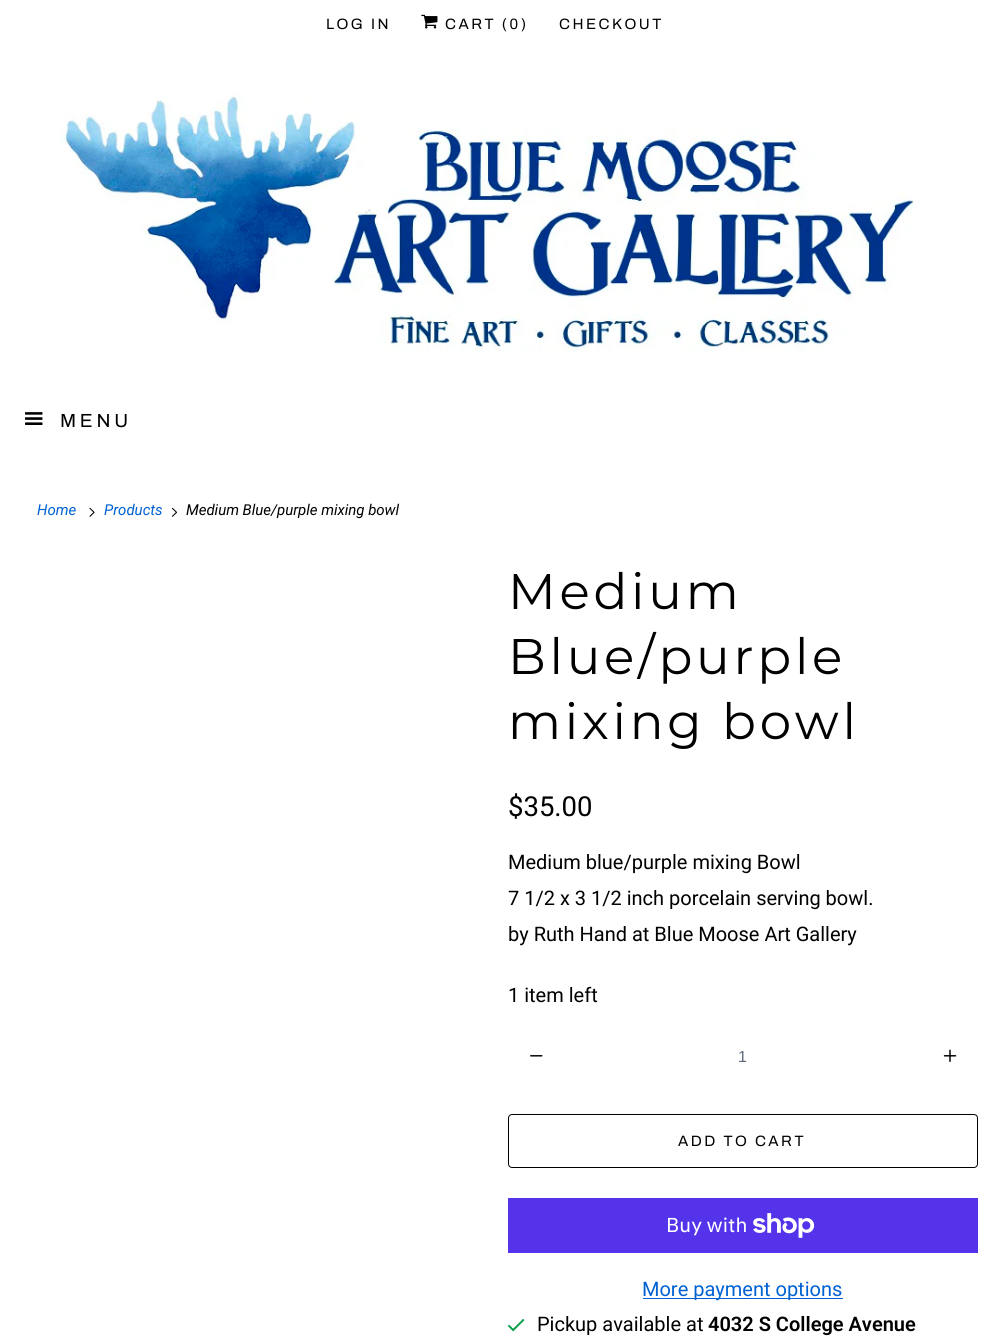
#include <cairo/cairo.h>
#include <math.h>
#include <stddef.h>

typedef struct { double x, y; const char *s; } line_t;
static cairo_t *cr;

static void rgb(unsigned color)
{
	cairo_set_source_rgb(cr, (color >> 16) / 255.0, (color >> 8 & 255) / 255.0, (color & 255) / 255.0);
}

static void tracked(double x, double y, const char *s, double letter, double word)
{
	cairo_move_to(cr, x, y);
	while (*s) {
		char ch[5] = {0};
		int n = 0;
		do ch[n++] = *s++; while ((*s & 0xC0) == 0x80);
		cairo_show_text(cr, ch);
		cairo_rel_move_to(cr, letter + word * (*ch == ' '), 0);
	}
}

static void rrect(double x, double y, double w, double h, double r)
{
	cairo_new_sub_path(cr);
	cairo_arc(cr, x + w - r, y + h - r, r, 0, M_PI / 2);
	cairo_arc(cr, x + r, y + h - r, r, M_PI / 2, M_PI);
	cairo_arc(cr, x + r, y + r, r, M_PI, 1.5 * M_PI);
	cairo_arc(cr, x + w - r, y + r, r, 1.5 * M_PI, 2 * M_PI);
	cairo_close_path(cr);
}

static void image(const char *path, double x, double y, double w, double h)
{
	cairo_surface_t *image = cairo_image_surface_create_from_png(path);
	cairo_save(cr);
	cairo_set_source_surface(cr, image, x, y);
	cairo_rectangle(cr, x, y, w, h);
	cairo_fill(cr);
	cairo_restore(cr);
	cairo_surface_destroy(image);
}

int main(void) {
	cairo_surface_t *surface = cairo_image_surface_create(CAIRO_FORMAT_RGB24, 990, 1344);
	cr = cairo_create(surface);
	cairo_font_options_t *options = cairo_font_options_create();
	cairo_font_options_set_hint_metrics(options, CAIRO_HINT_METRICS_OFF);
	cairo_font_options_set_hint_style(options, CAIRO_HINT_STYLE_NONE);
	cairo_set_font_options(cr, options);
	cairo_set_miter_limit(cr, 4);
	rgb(0xffffff);
	cairo_paint(cr);
	image("img/1.png", 421, 14, 17, 15);
	image("img/2.png", 60, 92, 854, 260);
	image("img/3.png", 25, 412, 18, 13);
	image("img/4.png", 89, 507, 6, 10);
	image("img/5.png", 171, 507, 7, 10);
	image("img/6.png", 530, 1055, 13, 2);
	image("img/7.png", 943, 1049, 14, 13);
	rrect(508.5, 1114.5, 469, 53, 3.5);
	rgb(0x000000);
	cairo_set_line_width(cr, 1);
	cairo_stroke(cr);
	rgb(0x5433eb);
	cairo_rectangle(cr, 508, 1198, 470, 55);
	cairo_fill(cr);
	image("img/8.png", 753, 1213, 62, 25);
	rgb(0x0061d2);
	cairo_rectangle(cr, 643, 1298, 200, 1);
	cairo_fill(cr);
	image("img/9.png", 508, 1318, 17, 14);
	cairo_select_font_face(cr, "Archivo", CAIRO_FONT_SLANT_NORMAL, CAIRO_FONT_WEIGHT_NORMAL);
	cairo_set_font_size(cr, 15);
	rgb(0x000000);
	{
		static const line_t items[] = {
			{326, 29, "LOG IN"},
			{445, 29, "CART (0)"},
			{559, 29, "CHECKOUT"},
		};
		for (size_t i = 0; i < sizeof items / sizeof *items; i++) {
			tracked(items[i].x, items[i].y, items[i].s, 2.5, 0);
		}
	}
	cairo_set_font_size(cr, 19);
	tracked(60, 427, "MENU", 3.75, 0);
	cairo_select_font_face(cr, "Roboto", CAIRO_FONT_SLANT_ITALIC, CAIRO_FONT_WEIGHT_NORMAL);
	cairo_set_font_size(cr, 15);
	rgb(0x0061d2);
	cairo_move_to(cr, 37, 515);
	cairo_show_text(cr, "Home");
	cairo_move_to(cr, 104, 515);
	cairo_show_text(cr, "Products");
	rgb(0x000000);
	cairo_move_to(cr, 186, 515);
	cairo_show_text(cr, "Medium Blue/purple mixing bowl");
	cairo_select_font_face(cr, "Montserrat", CAIRO_FONT_SLANT_NORMAL, CAIRO_FONT_WEIGHT_NORMAL);
	cairo_set_font_size(cr, 50);
	{
		static const line_t items[] = {
			{508, 609, "Medium"},
			{508, 674, "Blue/purple"},
			{508, 739, "mixing bowl"},
		};
		for (size_t i = 0; i < sizeof items / sizeof *items; i++) {
			tracked(items[i].x, items[i].y, items[i].s, 3.75, 0);
		}
	}
	cairo_select_font_face(cr, "Roboto", CAIRO_FONT_SLANT_NORMAL, CAIRO_FONT_WEIGHT_NORMAL);
	cairo_set_font_size(cr, 27.5);
	cairo_move_to(cr, 508, 816);
	cairo_show_text(cr, "$35.00");
	cairo_set_font_size(cr, 20);
	{
		static const line_t items[] = {
			{508, 869, "Medium blue/purple mixing Bowl"},
			{508, 905, "7 1/2 x 3 1/2 inch porcelain serving bowl."},
			{508, 941, "by Ruth Hand at Blue Moose Art Gallery"},
			{508, 1002, "1 item left"},
		};
		for (size_t i = 0; i < sizeof items / sizeof *items; i++) {
			cairo_move_to(cr, items[i].x, items[i].y);
			cairo_show_text(cr, items[i].s);
		}
	}
	cairo_select_font_face(cr, "Liberation Sans", CAIRO_FONT_SLANT_NORMAL, CAIRO_FONT_WEIGHT_NORMAL);
	cairo_set_font_size(cr, 16);
	rgb(0x5f6a7d);
	cairo_move_to(cr, 738, 1062);
	cairo_show_text(cr, "1");
	cairo_select_font_face(cr, "Archivo", CAIRO_FONT_SLANT_NORMAL, CAIRO_FONT_WEIGHT_NORMAL);
	cairo_set_font_size(cr, 15);
	rgb(0x000000);
	tracked(678, 1146, "ADD TO CART", 2.5, 0);
	cairo_select_font_face(cr, "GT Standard", CAIRO_FONT_SLANT_NORMAL, CAIRO_FONT_WEIGHT_NORMAL);
	cairo_set_font_size(cr, 20);
	rgb(0xffffff);
	cairo_move_to(cr, 666, 1232);
	cairo_show_text(cr, "Buy with");
	cairo_select_font_face(cr, "Roboto", CAIRO_FONT_SLANT_NORMAL, CAIRO_FONT_WEIGHT_NORMAL);
	rgb(0x0061d2);
	cairo_move_to(cr, 642, 1296);
	cairo_show_text(cr, "More payment options");
	rgb(0x000000);
	cairo_move_to(cr, 537, 1331);
	cairo_show_text(cr, "Pickup available at");
	cairo_select_font_face(cr, "Roboto SemiBold", CAIRO_FONT_SLANT_NORMAL, CAIRO_FONT_WEIGHT_NORMAL);
	cairo_move_to(cr, 708, 1331);
	cairo_show_text(cr, "4032 S College Avenue");
	cairo_surface_write_to_png(surface, "page.png");
	cairo_font_options_destroy(options);
	cairo_destroy(cr);
	cairo_surface_destroy(surface);
	return 0;
}
